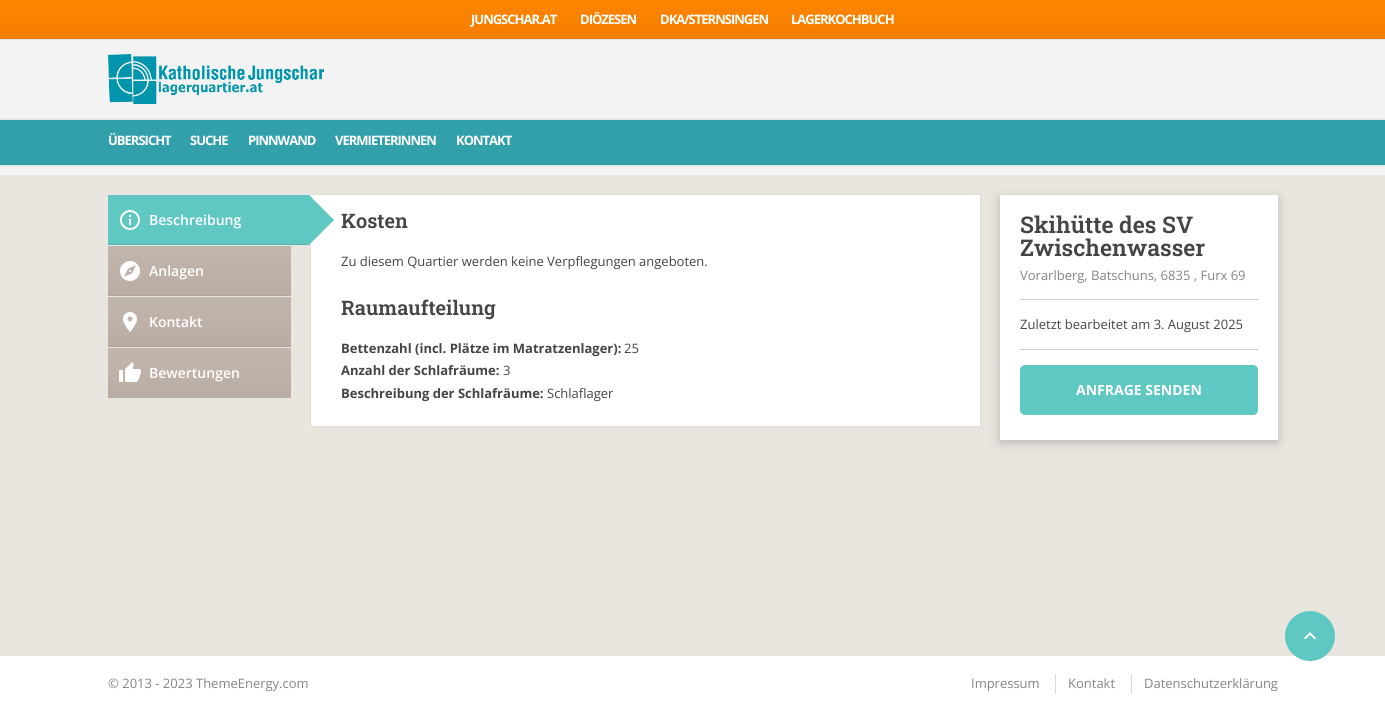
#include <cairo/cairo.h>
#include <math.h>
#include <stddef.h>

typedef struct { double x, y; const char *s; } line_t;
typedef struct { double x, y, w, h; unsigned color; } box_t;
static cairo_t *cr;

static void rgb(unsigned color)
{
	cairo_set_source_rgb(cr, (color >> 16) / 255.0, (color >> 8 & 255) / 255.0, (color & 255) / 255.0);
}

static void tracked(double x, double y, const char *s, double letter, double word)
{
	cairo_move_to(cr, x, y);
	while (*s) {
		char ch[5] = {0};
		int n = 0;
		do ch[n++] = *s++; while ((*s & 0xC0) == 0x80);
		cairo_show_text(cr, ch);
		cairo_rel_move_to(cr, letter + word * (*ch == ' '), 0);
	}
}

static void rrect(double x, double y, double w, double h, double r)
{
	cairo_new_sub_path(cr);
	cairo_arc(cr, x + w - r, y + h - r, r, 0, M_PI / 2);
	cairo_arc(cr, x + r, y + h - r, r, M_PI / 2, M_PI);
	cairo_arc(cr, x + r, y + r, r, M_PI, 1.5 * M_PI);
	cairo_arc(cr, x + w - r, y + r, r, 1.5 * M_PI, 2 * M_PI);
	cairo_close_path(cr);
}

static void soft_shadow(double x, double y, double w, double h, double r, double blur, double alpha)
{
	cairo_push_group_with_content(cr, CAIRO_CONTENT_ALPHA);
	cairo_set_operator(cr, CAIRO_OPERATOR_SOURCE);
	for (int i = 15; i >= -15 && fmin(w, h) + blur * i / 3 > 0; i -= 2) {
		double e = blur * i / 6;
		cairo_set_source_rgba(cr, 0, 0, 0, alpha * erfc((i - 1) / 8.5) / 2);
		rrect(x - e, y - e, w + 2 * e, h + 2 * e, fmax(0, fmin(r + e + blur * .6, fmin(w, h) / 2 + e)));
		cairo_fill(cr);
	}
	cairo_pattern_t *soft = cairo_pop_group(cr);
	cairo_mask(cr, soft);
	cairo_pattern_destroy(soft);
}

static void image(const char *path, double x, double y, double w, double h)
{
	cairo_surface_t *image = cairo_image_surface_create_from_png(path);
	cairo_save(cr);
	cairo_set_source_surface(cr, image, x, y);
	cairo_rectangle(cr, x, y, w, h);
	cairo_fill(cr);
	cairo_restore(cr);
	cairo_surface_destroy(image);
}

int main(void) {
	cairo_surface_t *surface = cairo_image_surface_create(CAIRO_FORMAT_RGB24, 1385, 711);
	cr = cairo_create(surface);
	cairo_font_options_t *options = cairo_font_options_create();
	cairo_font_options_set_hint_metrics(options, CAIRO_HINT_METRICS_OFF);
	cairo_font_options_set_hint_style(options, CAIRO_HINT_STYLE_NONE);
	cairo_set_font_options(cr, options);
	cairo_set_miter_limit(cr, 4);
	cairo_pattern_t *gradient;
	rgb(0xe9e6e0);
	cairo_paint(cr);
	rgb(0xf3f3f3);
	cairo_rectangle(cr, 0, 39, 1385, 136);
	cairo_fill(cr);
	rgb(0x000000);
	soft_shadow(0, 0, 1385, 39, 0, 1, 0.2);
	gradient = cairo_pattern_create_linear(693, 0, 693, 39);
	cairo_pattern_add_color_stop_rgba(gradient, 0, 1, 0.522, 0, 1);
	cairo_pattern_add_color_stop_rgba(gradient, 1, 0.953, 0.49, 0, 1);
	cairo_set_source(cr, gradient);
	cairo_pattern_destroy(gradient);
	cairo_rectangle(cr, 0, 0, 1385, 39);
	cairo_fill(cr);
	image("img/1.png", 108, 54, 216, 50);
	rgb(0x000000);
	soft_shadow(0, 120, 1385, 45, 0, 1, 0.2);
	rgb(0x31a0aa);
	cairo_rectangle(cr, 0, 120, 1385, 45);
	cairo_fill(cr);
	rgb(0x000000);
	soft_shadow(311, 195, 669, 231, 0, 1, 0.1);
	rgb(0x5fc8c2);
	cairo_rectangle(cr, 108, 195, 201, 49);
	cairo_fill(cr);
	rgb(0x56b4af);
	cairo_rectangle(cr, 108, 244, 201, 1);
	cairo_fill(cr);
	image("img/2.png", 120, 210, 20, 20);
	rgb(0xffffff);
	cairo_rectangle(cr, 311, 195, 669, 231);
	cairo_fill(cr);
	rgb(0x5fc8c2);
	cairo_new_path(cr);
	cairo_move_to(cr, 309, 245);
	cairo_line_to(cr, 309, 195);
	cairo_line_to(cr, 334, 220);
	cairo_close_path(cr);
	cairo_fill(cr);
	gradient = cairo_pattern_create_linear(200, 246, 200, 295);
	cairo_pattern_add_color_stop_rgba(gradient, 0, 0.757, 0.714, 0.682, 1);
	cairo_pattern_add_color_stop_rgba(gradient, 1, 0.729, 0.675, 0.639, 1);
	cairo_set_source(cr, gradient);
	cairo_pattern_destroy(gradient);
	cairo_rectangle(cr, 108, 246, 183, 49);
	cairo_fill(cr);
	rgb(0xaea49d);
	cairo_rectangle(cr, 108, 295, 183, 1);
	cairo_fill(cr);
	image("img/3.png", 120, 261, 20, 20);
	gradient = cairo_pattern_create_linear(200, 297, 200, 346);
	cairo_pattern_add_color_stop_rgba(gradient, 0, 0.757, 0.714, 0.682, 1);
	cairo_pattern_add_color_stop_rgba(gradient, 1, 0.729, 0.675, 0.639, 1);
	cairo_set_source(cr, gradient);
	cairo_pattern_destroy(gradient);
	cairo_rectangle(cr, 108, 297, 183, 49);
	cairo_fill(cr);
	rgb(0xaea49d);
	cairo_rectangle(cr, 108, 346, 183, 1);
	cairo_fill(cr);
	image("img/4.png", 123, 312, 14, 20);
	gradient = cairo_pattern_create_linear(200, 348, 200, 398);
	cairo_pattern_add_color_stop_rgba(gradient, 0, 0.757, 0.714, 0.682, 1);
	cairo_pattern_add_color_stop_rgba(gradient, 1, 0.729, 0.675, 0.639, 1);
	cairo_set_source(cr, gradient);
	cairo_pattern_destroy(gradient);
	cairo_rectangle(cr, 108, 348, 183, 50);
	cairo_fill(cr);
	image("img/5.png", 119, 362, 22, 20);
	rgb(0x000000);
	soft_shadow(1000, 198, 278, 245, 0, 5, 0.2);
	{
		static const box_t items[] = {
			{1000, 195, 278, 245, 0xffffff},
			{1020, 299, 238, 1, 0xcccccc},
			{1020, 349, 238, 1, 0xcccccc},
		};
		for (size_t i = 0; i < sizeof items / sizeof *items; i++) {
			rgb(items[i].color);
			cairo_rectangle(cr, items[i].x, items[i].y, items[i].w, items[i].h);
			cairo_fill(cr);
		}
	}
	rgb(0x5fc8c2);
	rrect(1020, 365, 238, 50, 5);
	cairo_fill(cr);
	rgb(0xffffff);
	cairo_rectangle(cr, 0, 656, 1385, 55);
	cairo_fill(cr);
	rgb(0x5fc8c2);
	cairo_arc(cr, 1310, 636, 25, 0, 2 * M_PI);
	cairo_fill(cr);
	image("img/6.png", 1304, 632, 12, 8);
	rgb(0xd9d9d9);
	cairo_rectangle(cr, 1055, 674, 1, 20);
	cairo_fill(cr);
	cairo_rectangle(cr, 1131, 674, 1, 20);
	cairo_fill(cr);
	cairo_select_font_face(cr, "Open Sans", CAIRO_FONT_SLANT_NORMAL, CAIRO_FONT_WEIGHT_BOLD);
	cairo_set_font_size(cr, 13);
	rgb(0xffffff);
	{
		static const line_t items[] = {
			{471, 24, "JUNGSCHAR.AT"},
			{580, 24, "DIÖZESEN"},
			{660, 24, "DKA/STERNSINGEN"},
			{791, 24, "LAGERKOCHBUCH"},
			{108, 145, "ÜBERSICHT"},
			{190, 145, "SUCHE"},
			{248, 145, "PINNWAND"},
			{335, 145, "VERMIETERINNEN"},
			{456, 145, "KONTAKT"},
		};
		for (size_t i = 0; i < sizeof items / sizeof *items; i++) {
			tracked(items[i].x, items[i].y, items[i].s, -1, 0);
		}
	}
	cairo_select_font_face(cr, "Open Sans SemiBold", CAIRO_FONT_SLANT_NORMAL, CAIRO_FONT_WEIGHT_NORMAL);
	cairo_set_font_size(cr, 14);
	{
		static const line_t items[] = {
			{149, 225, "Beschreibung"},
			{149, 276, "Anlagen"},
			{149, 327, "Kontakt"},
			{149, 378, "Bewertungen"},
		};
		for (size_t i = 0; i < sizeof items / sizeof *items; i++) {
			cairo_move_to(cr, items[i].x, items[i].y);
			cairo_show_text(cr, items[i].s);
		}
	}
	cairo_select_font_face(cr, "Roboto Slab SemiBold", CAIRO_FONT_SLANT_NORMAL, CAIRO_FONT_WEIGHT_NORMAL);
	cairo_set_font_size(cr, 20);
	rgb(0x454545);
	cairo_move_to(cr, 341, 228);
	cairo_show_text(cr, "Kosten");
	cairo_select_font_face(cr, "Open Sans", CAIRO_FONT_SLANT_NORMAL, CAIRO_FONT_WEIGHT_NORMAL);
	cairo_set_font_size(cr, 13);
	cairo_move_to(cr, 341, 266);
	cairo_show_text(cr, "Zu diesem Quartier werden keine Verpflegungen angeboten.");
	cairo_select_font_face(cr, "Roboto Slab SemiBold", CAIRO_FONT_SLANT_NORMAL, CAIRO_FONT_WEIGHT_NORMAL);
	cairo_set_font_size(cr, 20);
	cairo_move_to(cr, 341, 315);
	cairo_show_text(cr, "Raumaufteilung");
	cairo_select_font_face(cr, "Open Sans", CAIRO_FONT_SLANT_NORMAL, CAIRO_FONT_WEIGHT_BOLD);
	cairo_set_font_size(cr, 13);
	cairo_move_to(cr, 341, 353);
	cairo_show_text(cr, "Bettenzahl (incl. Plätze im Matratzenlager):");
	cairo_select_font_face(cr, "Open Sans", CAIRO_FONT_SLANT_NORMAL, CAIRO_FONT_WEIGHT_NORMAL);
	cairo_move_to(cr, 624, 353);
	cairo_show_text(cr, "25");
	cairo_select_font_face(cr, "Open Sans", CAIRO_FONT_SLANT_NORMAL, CAIRO_FONT_WEIGHT_BOLD);
	cairo_move_to(cr, 341, 375);
	cairo_show_text(cr, "Anzahl der Schlafräume:");
	cairo_select_font_face(cr, "Open Sans", CAIRO_FONT_SLANT_NORMAL, CAIRO_FONT_WEIGHT_NORMAL);
	cairo_move_to(cr, 503, 375);
	cairo_show_text(cr, "3");
	cairo_select_font_face(cr, "Open Sans", CAIRO_FONT_SLANT_NORMAL, CAIRO_FONT_WEIGHT_BOLD);
	cairo_move_to(cr, 341, 398);
	cairo_show_text(cr, "Beschreibung der Schlafräume:");
	cairo_select_font_face(cr, "Open Sans", CAIRO_FONT_SLANT_NORMAL, CAIRO_FONT_WEIGHT_NORMAL);
	cairo_move_to(cr, 547, 398);
	cairo_show_text(cr, "Schlaflager");
	cairo_select_font_face(cr, "Roboto Slab SemiBold", CAIRO_FONT_SLANT_NORMAL, CAIRO_FONT_WEIGHT_NORMAL);
	cairo_set_font_size(cr, 23);
	cairo_move_to(cr, 1020, 233);
	cairo_show_text(cr, "Skihütte des SV");
	cairo_move_to(cr, 1020, 256);
	cairo_show_text(cr, "Zwischenwasser");
	cairo_select_font_face(cr, "Open Sans", CAIRO_FONT_SLANT_NORMAL, CAIRO_FONT_WEIGHT_NORMAL);
	cairo_set_font_size(cr, 13);
	rgb(0x858585);
	cairo_move_to(cr, 1020, 280);
	cairo_show_text(cr, "Vorarlberg, Batschuns, 6835 , Furx 69");
	rgb(0x454545);
	cairo_move_to(cr, 1020, 329);
	cairo_show_text(cr, "Zuletzt bearbeitet am 3. August 2025");
	cairo_select_font_face(cr, "Open Sans", CAIRO_FONT_SLANT_NORMAL, CAIRO_FONT_WEIGHT_BOLD);
	cairo_set_font_size(cr, 14);
	rgb(0xffffff);
	cairo_move_to(cr, 1076, 395);
	cairo_show_text(cr, "ANFRAGE SENDEN");
	cairo_select_font_face(cr, "Open Sans", CAIRO_FONT_SLANT_NORMAL, CAIRO_FONT_WEIGHT_NORMAL);
	cairo_set_font_size(cr, 13);
	rgb(0x858585);
	{
		static const line_t items[] = {
			{108, 688, "© 2013 - 2023 ThemeEnergy.com"},
			{971, 688, "Impressum"},
			{1068, 688, "Kontakt"},
			{1144, 688, "Datenschutzerklärung"},
		};
		for (size_t i = 0; i < sizeof items / sizeof *items; i++) {
			cairo_move_to(cr, items[i].x, items[i].y);
			cairo_show_text(cr, items[i].s);
		}
	}
	cairo_surface_write_to_png(surface, "page.png");
	cairo_font_options_destroy(options);
	cairo_destroy(cr);
	cairo_surface_destroy(surface);
	return 0;
}
